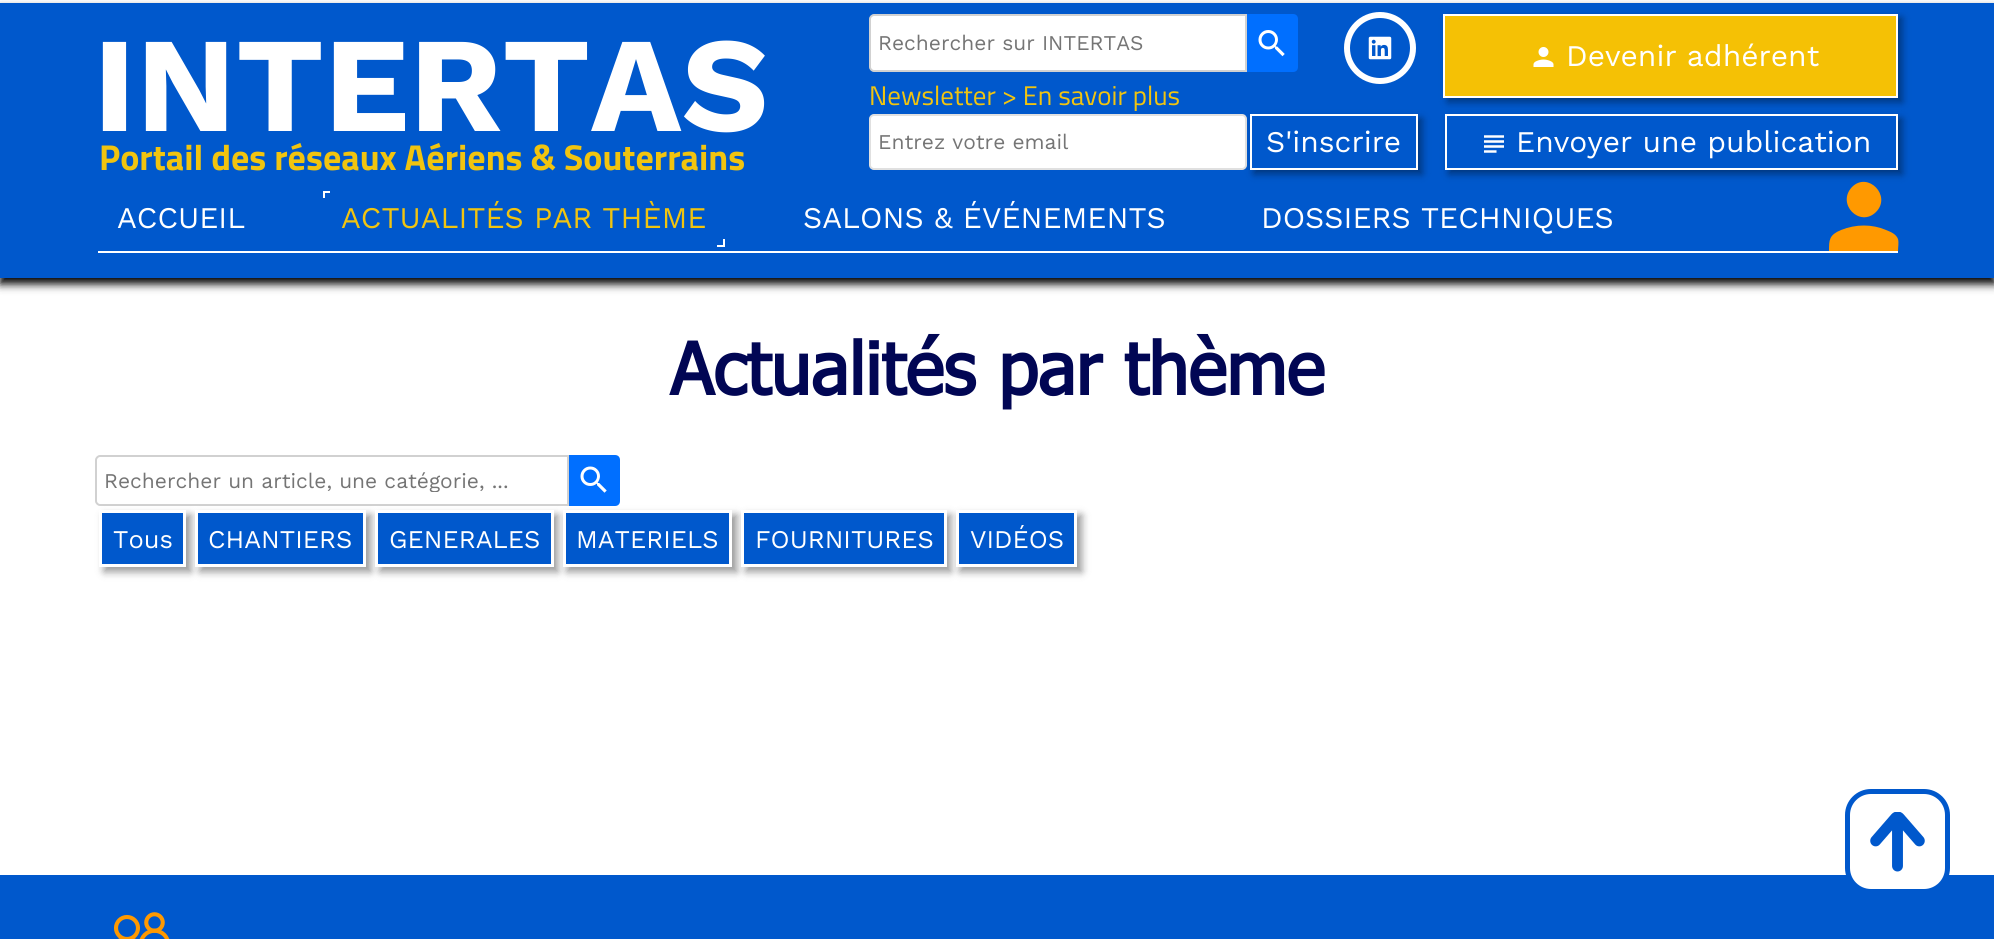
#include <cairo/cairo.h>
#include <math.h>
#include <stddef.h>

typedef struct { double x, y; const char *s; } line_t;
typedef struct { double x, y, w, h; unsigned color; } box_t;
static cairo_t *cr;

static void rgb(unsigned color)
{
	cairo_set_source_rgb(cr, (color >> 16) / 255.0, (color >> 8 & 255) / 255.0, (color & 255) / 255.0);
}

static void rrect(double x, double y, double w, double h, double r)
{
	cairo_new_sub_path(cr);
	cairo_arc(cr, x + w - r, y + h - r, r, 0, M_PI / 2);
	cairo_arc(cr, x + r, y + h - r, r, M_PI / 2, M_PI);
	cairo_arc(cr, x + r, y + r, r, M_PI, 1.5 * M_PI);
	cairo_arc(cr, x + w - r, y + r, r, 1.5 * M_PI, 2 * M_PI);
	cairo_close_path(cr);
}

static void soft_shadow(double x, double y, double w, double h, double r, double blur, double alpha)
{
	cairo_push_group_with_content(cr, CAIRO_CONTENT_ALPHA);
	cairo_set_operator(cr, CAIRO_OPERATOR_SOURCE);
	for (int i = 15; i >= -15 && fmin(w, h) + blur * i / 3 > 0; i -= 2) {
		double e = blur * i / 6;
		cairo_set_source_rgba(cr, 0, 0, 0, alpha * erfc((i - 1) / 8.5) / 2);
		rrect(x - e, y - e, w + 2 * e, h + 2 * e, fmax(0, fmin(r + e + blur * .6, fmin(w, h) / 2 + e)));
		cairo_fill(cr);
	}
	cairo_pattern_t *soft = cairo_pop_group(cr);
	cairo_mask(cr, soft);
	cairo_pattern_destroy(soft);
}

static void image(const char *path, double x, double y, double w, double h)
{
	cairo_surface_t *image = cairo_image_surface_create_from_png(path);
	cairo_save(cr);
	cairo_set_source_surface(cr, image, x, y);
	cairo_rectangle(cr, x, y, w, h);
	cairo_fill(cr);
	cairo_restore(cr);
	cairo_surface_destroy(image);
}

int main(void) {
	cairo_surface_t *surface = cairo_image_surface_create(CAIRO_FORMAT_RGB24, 1994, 939);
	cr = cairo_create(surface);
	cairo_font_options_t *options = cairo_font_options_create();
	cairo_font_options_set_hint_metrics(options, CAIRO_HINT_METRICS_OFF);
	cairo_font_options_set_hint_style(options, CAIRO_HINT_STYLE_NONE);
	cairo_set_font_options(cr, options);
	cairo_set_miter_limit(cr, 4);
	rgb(0xffffff);
	cairo_paint(cr);
	rgb(0x000000);
	soft_shadow(0, 9, 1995, 275, 0, 4.5, 1);
	rgb(0x0058cc);
	cairo_rectangle(cr, 0, 3, 1994, 275);
	cairo_fill(cr);
	rgb(0xffffff);
	cairo_new_path(cr);
	cairo_move_to(cr, 874, 15);
	cairo_line_to(cr, 1246, 15);
	cairo_line_to(cr, 1246, 71);
	cairo_line_to(cr, 874, 71);
	cairo_curve_to(cr, 872, 71, 870, 69, 870, 67);
	cairo_line_to(cr, 870, 19);
	cairo_curve_to(cr, 870, 17, 872, 15, 874, 15);
	cairo_close_path(cr);
	cairo_fill_preserve(cr);
	rgb(0xd1d1d1);
	cairo_stroke(cr);
	rgb(0x006fff);
	cairo_new_path(cr);
	cairo_move_to(cr, 1247, 14);
	cairo_line_to(cr, 1293, 14);
	cairo_curve_to(cr, 1296, 14, 1298, 16, 1298, 19);
	cairo_line_to(cr, 1298, 67);
	cairo_curve_to(cr, 1298, 70, 1296, 72, 1293, 72);
	cairo_line_to(cr, 1247, 72);
	cairo_close_path(cr);
	cairo_fill(cr);
	image("img/1.png", 1258, 30, 27, 27);
	cairo_arc(cr, 1380, 48, 33, 0, 2 * M_PI);
	rgb(0xffffff);
	cairo_set_line_width(cr, 6);
	cairo_stroke(cr);
	image("img/2.png", 1368, 36, 24, 24);
	rgb(0x000000);
	soft_shadow(1449, 119, 453, 55, 0, 4, 0.4);
	rgb(0x0058cc);
	cairo_rectangle(cr, 1446, 115, 451, 54);
	cairo_fill_preserve(cr);
	rgb(0xffffff);
	cairo_set_line_width(cr, 2);
	cairo_stroke(cr);
	rgb(0x000000);
	soft_shadow(1448, 18, 454, 84, 0, 4, 0.4);
	rgb(0xf5c105);
	cairo_rectangle(cr, 1444, 15, 453, 82);
	cairo_fill_preserve(cr);
	rgb(0xffffff);
	cairo_stroke(cr);
	image("img/3.png", 1533, 47, 21, 20);
	rrect(870, 115, 376, 54, 4);
	cairo_fill_preserve(cr);
	rgb(0xe0e0e0);
	cairo_stroke(cr);
	rgb(0x000000);
	soft_shadow(1254, 119, 168, 55, 0, 4, 0.4);
	rgb(0x0058cc);
	cairo_rectangle(cr, 1251, 115, 166, 54);
	cairo_fill_preserve(cr);
	rgb(0xffffff);
	cairo_stroke(cr);
	image("img/4.png", 1484, 135, 20, 18);
	{
		static const box_t items[] = {
			{323, 191, 7, 2, 0xffffff},
			{323, 191, 2, 7, 0xffffff},
			{723, 239, 2, 7, 0xffffff},
			{717, 245, 8, 2, 0xffffff},
		};
		for (size_t i = 0; i < sizeof items / sizeof *items; i++) {
			rgb(items[i].color);
			cairo_rectangle(cr, items[i].x, items[i].y, items[i].w, items[i].h);
			cairo_fill(cr);
		}
	}
	rgb(0xff9900);
	cairo_new_path(cr);
	cairo_move_to(cr, 1841, 230);
	cairo_curve_to(cr, 1856, 224, 1872, 224, 1886, 230);
	cairo_curve_to(cr, 1891, 232, 1896, 234, 1898, 239);
	cairo_curve_to(cr, 1899, 243, 1898, 247, 1898, 251);
	cairo_line_to(cr, 1829, 251);
	cairo_curve_to(cr, 1829, 240, 1829, 235, 1841, 230);
	cairo_close_path(cr);
	cairo_move_to(cr, 1876, 212);
	cairo_curve_to(cr, 1860, 228, 1836, 204, 1852, 187);
	cairo_curve_to(cr, 1868, 171, 1892, 196, 1876, 212);
	cairo_close_path(cr);
	cairo_fill(cr);
	rgb(0xffffff);
	cairo_rectangle(cr, 98, 251, 1800, 2);
	cairo_fill(cr);
	cairo_new_path(cr);
	cairo_move_to(cr, 100, 456);
	cairo_line_to(cr, 568, 456);
	cairo_line_to(cr, 568, 505);
	cairo_line_to(cr, 100, 505);
	cairo_curve_to(cr, 98, 505, 96, 503, 96, 501);
	cairo_line_to(cr, 96, 460);
	cairo_curve_to(cr, 96, 458, 98, 456, 100, 456);
	cairo_close_path(cr);
	rgb(0xd1d1d1);
	cairo_stroke(cr);
	rgb(0x006fff);
	cairo_new_path(cr);
	cairo_move_to(cr, 569, 455);
	cairo_line_to(cr, 615, 455);
	cairo_curve_to(cr, 618, 455, 620, 457, 620, 460);
	cairo_line_to(cr, 620, 501);
	cairo_curve_to(cr, 620, 504, 618, 506, 615, 506);
	cairo_line_to(cr, 569, 506);
	cairo_close_path(cr);
	cairo_fill(cr);
	image("img/5.png", 580, 466, 27, 27);
	rgb(0x000000);
	soft_shadow(104, 515, 87, 57, 0, 4, 0.4);
	rgb(0x0058cc);
	cairo_rectangle(cr, 100.5, 511.5, 84, 54);
	cairo_fill_preserve(cr);
	rgb(0xffffff);
	cairo_set_line_width(cr, 3);
	cairo_stroke(cr);
	rgb(0x000000);
	soft_shadow(200, 515, 171, 57, 0, 4, 0.4);
	rgb(0x0058cc);
	cairo_rectangle(cr, 196.5, 511.5, 168, 54);
	cairo_fill_preserve(cr);
	rgb(0xffffff);
	cairo_stroke(cr);
	rgb(0x000000);
	soft_shadow(380, 515, 178, 57, 0, 4, 0.4);
	rgb(0x0058cc);
	cairo_rectangle(cr, 376.5, 511.5, 176, 54);
	cairo_fill_preserve(cr);
	rgb(0xffffff);
	cairo_stroke(cr);
	rgb(0x000000);
	soft_shadow(567, 515, 170, 57, 0, 4, 0.4);
	rgb(0x0058cc);
	cairo_rectangle(cr, 564.5, 511.5, 166, 54);
	cairo_fill_preserve(cr);
	rgb(0xffffff);
	cairo_stroke(cr);
	rgb(0x000000);
	soft_shadow(746, 515, 205, 57, 0, 4, 0.4);
	rgb(0x0058cc);
	cairo_rectangle(cr, 742.5, 511.5, 203, 54);
	cairo_fill_preserve(cr);
	rgb(0xffffff);
	cairo_stroke(cr);
	rgb(0x000000);
	soft_shadow(960, 515, 122, 57, 0, 4, 0.4);
	rgb(0x0058cc);
	cairo_rectangle(cr, 957.5, 511.5, 118, 54);
	cairo_fill_preserve(cr);
	rgb(0xffffff);
	cairo_stroke(cr);
	rgb(0x0058cc);
	cairo_rectangle(cr, 0, 875, 1994, 64);
	cairo_fill(cr);
	image("img/6.png", 114, 912, 56, 27);
	rgb(0xffffff);
	rrect(1847.5, 791.5, 100, 100, 23.5);
	cairo_fill_preserve(cr);
	rgb(0x0058cc);
	cairo_set_line_width(cr, 5);
	cairo_stroke(cr);
	image("img/7.png", 1870, 812, 55, 60);
	cairo_select_font_face(cr, "Work Sans", CAIRO_FONT_SLANT_NORMAL, CAIRO_FONT_WEIGHT_BOLD);
	cairo_set_font_size(cr, 135);
	rgb(0xffffff);
	cairo_move_to(cr, 93, 131);
	cairo_show_text(cr, "INTERTAS");
	cairo_select_font_face(cr, "Work Sans", CAIRO_FONT_SLANT_NORMAL, CAIRO_FONT_WEIGHT_NORMAL);
	cairo_set_font_size(cr, 21);
	rgb(0x757575);
	cairo_move_to(cr, 878, 50);
	cairo_show_text(cr, "Rechercher sur INTERTAS");
	cairo_set_font_size(cr, 30);
	rgb(0xffffff);
	cairo_move_to(cr, 1566, 66);
	cairo_show_text(cr, "Devenir adhérent");
	cairo_select_font_face(cr, "Titillium Web", CAIRO_FONT_SLANT_NORMAL, CAIRO_FONT_WEIGHT_NORMAL);
	cairo_set_font_size(cr, 27);
	rgb(0xf1c40f);
	cairo_move_to(cr, 869, 105);
	cairo_show_text(cr, "Newsletter > En savoir plus");
	cairo_select_font_face(cr, "Titillium Web", CAIRO_FONT_SLANT_NORMAL, CAIRO_FONT_WEIGHT_BOLD);
	cairo_set_font_size(cr, 36);
	cairo_move_to(cr, 99, 170);
	cairo_show_text(cr, "Portail des réseaux Aériens & Souterrains");
	cairo_select_font_face(cr, "Work Sans", CAIRO_FONT_SLANT_NORMAL, CAIRO_FONT_WEIGHT_NORMAL);
	cairo_set_font_size(cr, 21);
	rgb(0x757575);
	cairo_move_to(cr, 878, 149);
	cairo_show_text(cr, "Entrez votre email");
	cairo_set_font_size(cr, 30);
	rgb(0xffffff);
	{
		static const line_t items[] = {
			{1266, 152, "S'inscrire"},
			{1516, 152, "Envoyer une publication"},
			{117, 228, "ACCUEIL"},
		};
		for (size_t i = 0; i < sizeof items / sizeof *items; i++) {
			cairo_move_to(cr, items[i].x, items[i].y);
			cairo_show_text(cr, items[i].s);
		}
	}
	rgb(0xf1c40f);
	cairo_move_to(cr, 341, 228);
	cairo_show_text(cr, "ACTUALITÉS PAR THÈME");
	rgb(0xffffff);
	cairo_move_to(cr, 803, 228);
	cairo_show_text(cr, "SALONS & ÉVÉNEMENTS");
	cairo_move_to(cr, 1261, 228);
	cairo_show_text(cr, "DOSSIERS TECHNIQUES");
	cairo_select_font_face(cr, "Tahoma", CAIRO_FONT_SLANT_NORMAL, CAIRO_FONT_WEIGHT_BOLD);
	cairo_set_font_size(cr, 72);
	rgb(0x010654);
	cairo_move_to(cr, 670, 395);
	cairo_show_text(cr, "Actualités par thème");
	cairo_save(cr);
	cairo_rectangle(cr, 104, 468, 411, 24);
	cairo_clip(cr);
	cairo_select_font_face(cr, "Work Sans", CAIRO_FONT_SLANT_NORMAL, CAIRO_FONT_WEIGHT_NORMAL);
	cairo_set_font_size(cr, 21);
	rgb(0x757575);
	cairo_move_to(cr, 104, 488);
	cairo_show_text(cr, "Rechercher un article, une catégorie, ...");
	cairo_restore(cr);
	cairo_select_font_face(cr, "Work Sans", CAIRO_FONT_SLANT_NORMAL, CAIRO_FONT_WEIGHT_NORMAL);
	cairo_set_font_size(cr, 25.5);
	rgb(0xffffff);
	{
		static const line_t items[] = {
			{113, 548, "Tous"},
			{208, 548, "CHANTIERS"},
			{389, 548, "GENERALES"},
			{576, 548, "MATERIELS"},
			{755, 548, "FOURNITURES"},
			{970, 548, "VIDÉOS"},
		};
		for (size_t i = 0; i < sizeof items / sizeof *items; i++) {
			cairo_move_to(cr, items[i].x, items[i].y);
			cairo_show_text(cr, items[i].s);
		}
	}
	cairo_surface_write_to_png(surface, "page.png");
	cairo_font_options_destroy(options);
	cairo_destroy(cr);
	cairo_surface_destroy(surface);
	return 0;
}
